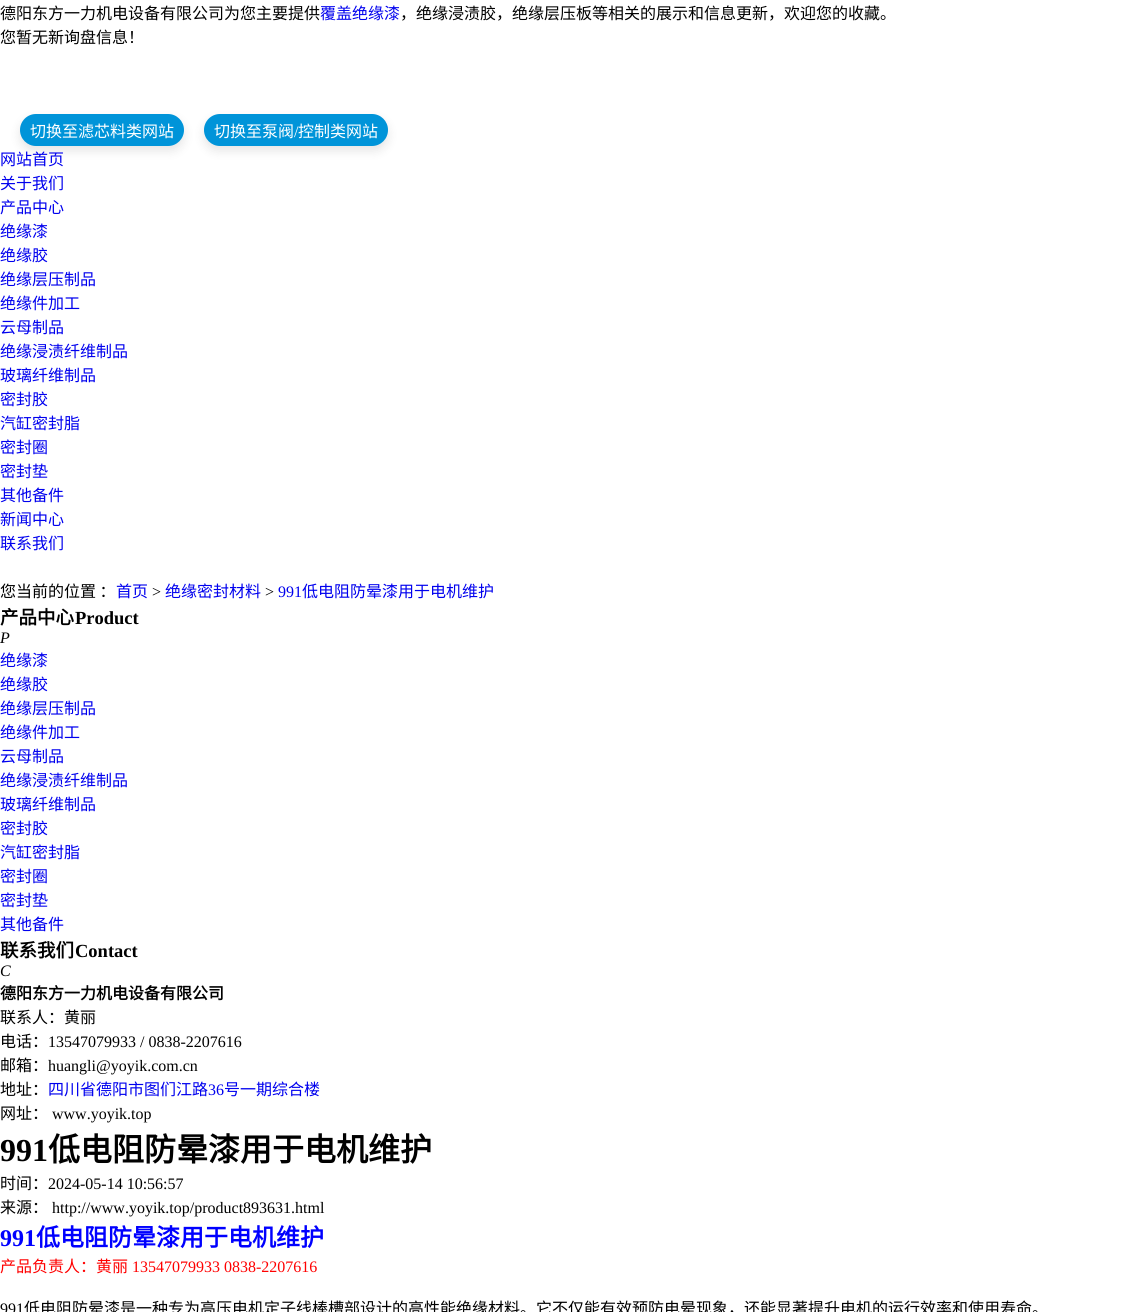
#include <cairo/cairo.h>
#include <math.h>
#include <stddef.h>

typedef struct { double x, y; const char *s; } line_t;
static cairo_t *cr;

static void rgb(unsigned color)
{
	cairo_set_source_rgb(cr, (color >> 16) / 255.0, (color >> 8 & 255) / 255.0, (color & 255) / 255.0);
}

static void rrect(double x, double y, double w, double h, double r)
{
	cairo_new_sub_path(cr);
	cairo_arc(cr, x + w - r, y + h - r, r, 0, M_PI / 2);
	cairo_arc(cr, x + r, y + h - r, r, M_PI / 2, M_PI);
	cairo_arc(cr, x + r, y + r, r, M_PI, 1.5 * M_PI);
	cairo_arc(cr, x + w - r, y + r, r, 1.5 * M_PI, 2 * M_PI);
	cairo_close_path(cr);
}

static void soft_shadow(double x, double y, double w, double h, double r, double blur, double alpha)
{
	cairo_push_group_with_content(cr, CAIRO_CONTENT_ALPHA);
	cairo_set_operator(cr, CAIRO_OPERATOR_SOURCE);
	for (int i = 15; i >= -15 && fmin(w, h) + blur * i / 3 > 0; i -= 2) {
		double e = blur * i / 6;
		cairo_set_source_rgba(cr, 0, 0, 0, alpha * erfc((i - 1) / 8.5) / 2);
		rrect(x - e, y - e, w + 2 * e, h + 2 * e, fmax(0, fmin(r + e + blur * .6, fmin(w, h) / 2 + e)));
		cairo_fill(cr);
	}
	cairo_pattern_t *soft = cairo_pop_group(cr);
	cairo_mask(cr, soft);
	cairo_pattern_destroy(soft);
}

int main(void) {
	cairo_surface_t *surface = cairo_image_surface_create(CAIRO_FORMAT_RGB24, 1136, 1312);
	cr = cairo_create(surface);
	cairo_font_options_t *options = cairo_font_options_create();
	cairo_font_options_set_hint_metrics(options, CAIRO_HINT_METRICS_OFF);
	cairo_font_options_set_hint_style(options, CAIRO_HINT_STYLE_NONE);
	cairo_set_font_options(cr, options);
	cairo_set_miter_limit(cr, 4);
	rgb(0xffffff);
	cairo_paint(cr);
	rgb(0x000000);
	soft_shadow(20, 119, 164, 32, 16, 5, 0.1);
	rgb(0x0094d9);
	rrect(20, 114, 164, 32, 16);
	cairo_fill(cr);
	rgb(0x000000);
	soft_shadow(204, 119, 184, 32, 16, 5, 0.1);
	rgb(0x0094d9);
	rrect(204, 114, 184, 32, 16);
	cairo_fill(cr);
	cairo_select_font_face(cr, "Noto Sans CJK SC", CAIRO_FONT_SLANT_NORMAL, CAIRO_FONT_WEIGHT_NORMAL);
	cairo_set_font_size(cr, 16);
	rgb(0x000000);
	cairo_move_to(cr, 0, 19);
	cairo_show_text(cr, "德阳东方一力机电设备有限公司为您主要提供");
	rgb(0x0000ee);
	cairo_move_to(cr, 320, 19);
	cairo_show_text(cr, "覆盖绝缘漆");
	rgb(0x000000);
	cairo_move_to(cr, 400, 19);
	cairo_show_text(cr, "，绝缘浸渍胶，绝缘层压板等相关的展示和信息更新，欢迎您的收藏。");
	cairo_move_to(cr, 0, 43);
	cairo_show_text(cr, "您暂无新询盘信息！");
	rgb(0xffffff);
	cairo_move_to(cr, 30, 137);
	cairo_show_text(cr, "切换至滤芯料类网站");
	cairo_move_to(cr, 214, 137);
	cairo_show_text(cr, "切换至泵阀");
	cairo_select_font_face(cr, "Liberation Serif", CAIRO_FONT_SLANT_NORMAL, CAIRO_FONT_WEIGHT_NORMAL);
	cairo_move_to(cr, 294, 137);
	cairo_show_text(cr, "/");
	cairo_select_font_face(cr, "Noto Sans CJK SC", CAIRO_FONT_SLANT_NORMAL, CAIRO_FONT_WEIGHT_NORMAL);
	cairo_move_to(cr, 298, 137);
	cairo_show_text(cr, "控制类网站");
	rgb(0x0000ee);
	{
		static const line_t items[] = {
			{0, 165, "网站首页"},
			{0, 189, "关于我们"},
			{0, 213, "产品中心"},
			{0, 237, "绝缘漆"},
			{0, 261, "绝缘胶"},
			{0, 285, "绝缘层压制品"},
			{0, 309, "绝缘件加工"},
			{0, 333, "云母制品"},
			{0, 357, "绝缘浸渍纤维制品"},
			{0, 381, "玻璃纤维制品"},
			{0, 405, "密封胶"},
			{0, 429, "汽缸密封脂"},
			{0, 453, "密封圈"},
			{0, 477, "密封垫"},
			{0, 501, "其他备件"},
			{0, 525, "新闻中心"},
			{0, 549, "联系我们"},
		};
		for (size_t i = 0; i < sizeof items / sizeof *items; i++) {
			cairo_move_to(cr, items[i].x, items[i].y);
			cairo_show_text(cr, items[i].s);
		}
	}
	rgb(0x000000);
	cairo_move_to(cr, 0, 597);
	cairo_show_text(cr, "您当前的位置 ：");
	rgb(0x0000ee);
	cairo_move_to(cr, 116, 597);
	cairo_show_text(cr, "首页");
	cairo_select_font_face(cr, "Liberation Serif", CAIRO_FONT_SLANT_NORMAL, CAIRO_FONT_WEIGHT_NORMAL);
	rgb(0x000000);
	cairo_move_to(cr, 152, 597);
	cairo_show_text(cr, ">");
	cairo_select_font_face(cr, "Noto Sans CJK SC", CAIRO_FONT_SLANT_NORMAL, CAIRO_FONT_WEIGHT_NORMAL);
	rgb(0x0000ee);
	cairo_move_to(cr, 165, 597);
	cairo_show_text(cr, "绝缘密封材料");
	cairo_select_font_face(cr, "Liberation Serif", CAIRO_FONT_SLANT_NORMAL, CAIRO_FONT_WEIGHT_NORMAL);
	rgb(0x000000);
	cairo_move_to(cr, 265, 597);
	cairo_show_text(cr, ">");
	rgb(0x0000ee);
	cairo_move_to(cr, 278, 597);
	cairo_show_text(cr, "991");
	cairo_select_font_face(cr, "Noto Sans CJK SC", CAIRO_FONT_SLANT_NORMAL, CAIRO_FONT_WEIGHT_NORMAL);
	cairo_move_to(cr, 302, 597);
	cairo_show_text(cr, "低电阻防晕漆用于电机维护");
	cairo_select_font_face(cr, "Noto Sans CJK SC", CAIRO_FONT_SLANT_NORMAL, CAIRO_FONT_WEIGHT_BOLD);
	cairo_set_font_size(cr, 18.5);
	rgb(0x000000);
	cairo_move_to(cr, 0, 624);
	cairo_show_text(cr, "产品中心");
	cairo_select_font_face(cr, "Liberation Serif", CAIRO_FONT_SLANT_NORMAL, CAIRO_FONT_WEIGHT_BOLD);
	cairo_move_to(cr, 75, 624);
	cairo_show_text(cr, "Product");
	cairo_select_font_face(cr, "Liberation Serif", CAIRO_FONT_SLANT_ITALIC, CAIRO_FONT_WEIGHT_NORMAL);
	cairo_set_font_size(cr, 16);
	cairo_move_to(cr, 0, 643);
	cairo_show_text(cr, "P");
	cairo_select_font_face(cr, "Noto Sans CJK SC", CAIRO_FONT_SLANT_NORMAL, CAIRO_FONT_WEIGHT_NORMAL);
	rgb(0x0000ee);
	{
		static const line_t items[] = {
			{0, 666, "绝缘漆"},
			{0, 690, "绝缘胶"},
			{0, 714, "绝缘层压制品"},
			{0, 738, "绝缘件加工"},
			{0, 762, "云母制品"},
			{0, 786, "绝缘浸渍纤维制品"},
			{0, 810, "玻璃纤维制品"},
			{0, 834, "密封胶"},
			{0, 858, "汽缸密封脂"},
			{0, 882, "密封圈"},
			{0, 906, "密封垫"},
			{0, 930, "其他备件"},
		};
		for (size_t i = 0; i < sizeof items / sizeof *items; i++) {
			cairo_move_to(cr, items[i].x, items[i].y);
			cairo_show_text(cr, items[i].s);
		}
	}
	cairo_select_font_face(cr, "Noto Sans CJK SC", CAIRO_FONT_SLANT_NORMAL, CAIRO_FONT_WEIGHT_BOLD);
	cairo_set_font_size(cr, 18.5);
	rgb(0x000000);
	cairo_move_to(cr, 0, 957);
	cairo_show_text(cr, "联系我们");
	cairo_select_font_face(cr, "Liberation Serif", CAIRO_FONT_SLANT_NORMAL, CAIRO_FONT_WEIGHT_BOLD);
	cairo_move_to(cr, 75, 957);
	cairo_show_text(cr, "Contact");
	cairo_select_font_face(cr, "Liberation Serif", CAIRO_FONT_SLANT_ITALIC, CAIRO_FONT_WEIGHT_NORMAL);
	cairo_set_font_size(cr, 16);
	cairo_move_to(cr, 0, 976);
	cairo_show_text(cr, "C");
	cairo_select_font_face(cr, "Noto Sans CJK SC", CAIRO_FONT_SLANT_NORMAL, CAIRO_FONT_WEIGHT_BOLD);
	cairo_move_to(cr, 0, 999);
	cairo_show_text(cr, "德阳东方一力机电设备有限公司");
	cairo_select_font_face(cr, "Noto Sans CJK SC", CAIRO_FONT_SLANT_NORMAL, CAIRO_FONT_WEIGHT_NORMAL);
	cairo_move_to(cr, 0, 1023);
	cairo_show_text(cr, "联系人：黄丽");
	cairo_move_to(cr, 0, 1047);
	cairo_show_text(cr, "电话：");
	cairo_select_font_face(cr, "Liberation Serif", CAIRO_FONT_SLANT_NORMAL, CAIRO_FONT_WEIGHT_NORMAL);
	cairo_move_to(cr, 48, 1047);
	cairo_show_text(cr, "13547079933 / 0838-2207616");
	cairo_select_font_face(cr, "Noto Sans CJK SC", CAIRO_FONT_SLANT_NORMAL, CAIRO_FONT_WEIGHT_NORMAL);
	cairo_move_to(cr, 0, 1071);
	cairo_show_text(cr, "邮箱：");
	cairo_select_font_face(cr, "Liberation Serif", CAIRO_FONT_SLANT_NORMAL, CAIRO_FONT_WEIGHT_NORMAL);
	cairo_move_to(cr, 48, 1071);
	cairo_show_text(cr, "huangli@yoyik.com.cn");
	cairo_select_font_face(cr, "Noto Sans CJK SC", CAIRO_FONT_SLANT_NORMAL, CAIRO_FONT_WEIGHT_NORMAL);
	cairo_move_to(cr, 0, 1095);
	cairo_show_text(cr, "地址：");
	rgb(0x0000ee);
	cairo_move_to(cr, 48, 1095);
	cairo_show_text(cr, "四川省德阳市图们江路");
	cairo_select_font_face(cr, "Liberation Serif", CAIRO_FONT_SLANT_NORMAL, CAIRO_FONT_WEIGHT_NORMAL);
	cairo_move_to(cr, 208, 1095);
	cairo_show_text(cr, "36");
	cairo_select_font_face(cr, "Noto Sans CJK SC", CAIRO_FONT_SLANT_NORMAL, CAIRO_FONT_WEIGHT_NORMAL);
	cairo_move_to(cr, 224, 1095);
	cairo_show_text(cr, "号一期综合楼");
	rgb(0x000000);
	cairo_move_to(cr, 0, 1119);
	cairo_show_text(cr, "网址：");
	cairo_select_font_face(cr, "Liberation Serif", CAIRO_FONT_SLANT_NORMAL, CAIRO_FONT_WEIGHT_NORMAL);
	cairo_move_to(cr, 52, 1119);
	cairo_show_text(cr, "www.yoyik.top");
	cairo_select_font_face(cr, "Liberation Serif", CAIRO_FONT_SLANT_NORMAL, CAIRO_FONT_WEIGHT_BOLD);
	cairo_set_font_size(cr, 32);
	cairo_move_to(cr, 0, 1161);
	cairo_show_text(cr, "991");
	cairo_select_font_face(cr, "Noto Sans CJK SC", CAIRO_FONT_SLANT_NORMAL, CAIRO_FONT_WEIGHT_BOLD);
	cairo_move_to(cr, 48, 1161);
	cairo_show_text(cr, "低电阻防晕漆用于电机维护");
	cairo_select_font_face(cr, "Noto Sans CJK SC", CAIRO_FONT_SLANT_NORMAL, CAIRO_FONT_WEIGHT_NORMAL);
	cairo_set_font_size(cr, 16);
	cairo_move_to(cr, 0, 1189);
	cairo_show_text(cr, "时间：");
	cairo_select_font_face(cr, "Liberation Serif", CAIRO_FONT_SLANT_NORMAL, CAIRO_FONT_WEIGHT_NORMAL);
	cairo_move_to(cr, 48, 1189);
	cairo_show_text(cr, "2024-05-14 10:56:57");
	cairo_select_font_face(cr, "Noto Sans CJK SC", CAIRO_FONT_SLANT_NORMAL, CAIRO_FONT_WEIGHT_NORMAL);
	cairo_move_to(cr, 0, 1213);
	cairo_show_text(cr, "来源：");
	cairo_select_font_face(cr, "Liberation Serif", CAIRO_FONT_SLANT_NORMAL, CAIRO_FONT_WEIGHT_NORMAL);
	cairo_move_to(cr, 52, 1213);
	cairo_show_text(cr, "http://www.yoyik.top/product893631.html");
	cairo_select_font_face(cr, "Liberation Serif", CAIRO_FONT_SLANT_NORMAL, CAIRO_FONT_WEIGHT_BOLD);
	cairo_set_font_size(cr, 24);
	rgb(0x0000ff);
	cairo_move_to(cr, 0, 1246);
	cairo_show_text(cr, "991");
	cairo_select_font_face(cr, "Noto Sans CJK SC", CAIRO_FONT_SLANT_NORMAL, CAIRO_FONT_WEIGHT_BOLD);
	cairo_move_to(cr, 36, 1246);
	cairo_show_text(cr, "低电阻防晕漆用于电机维护");
	cairo_select_font_face(cr, "Noto Sans CJK SC", CAIRO_FONT_SLANT_NORMAL, CAIRO_FONT_WEIGHT_NORMAL);
	cairo_set_font_size(cr, 16);
	rgb(0xff0000);
	cairo_move_to(cr, 0, 1272);
	cairo_show_text(cr, "产品负责人：黄丽");
	cairo_select_font_face(cr, "Liberation Serif", CAIRO_FONT_SLANT_NORMAL, CAIRO_FONT_WEIGHT_NORMAL);
	cairo_move_to(cr, 132, 1272);
	cairo_show_text(cr, "13547079933 0838-2207616");
	rgb(0x000000);
	cairo_move_to(cr, 0, 1314);
	cairo_show_text(cr, "991");
	cairo_select_font_face(cr, "Noto Sans CJK SC", CAIRO_FONT_SLANT_NORMAL, CAIRO_FONT_WEIGHT_NORMAL);
	cairo_move_to(cr, 24, 1314);
	cairo_show_text(cr, "低电阻防晕漆是一种专为高压电机定子线棒槽部设计的高性能绝缘材料。它不仅能有效预防电晕现象，还能显著提升电机的运行效率和使用寿命。");
	cairo_surface_write_to_png(surface, "page.png");
	cairo_font_options_destroy(options);
	cairo_destroy(cr);
	cairo_surface_destroy(surface);
	return 0;
}
